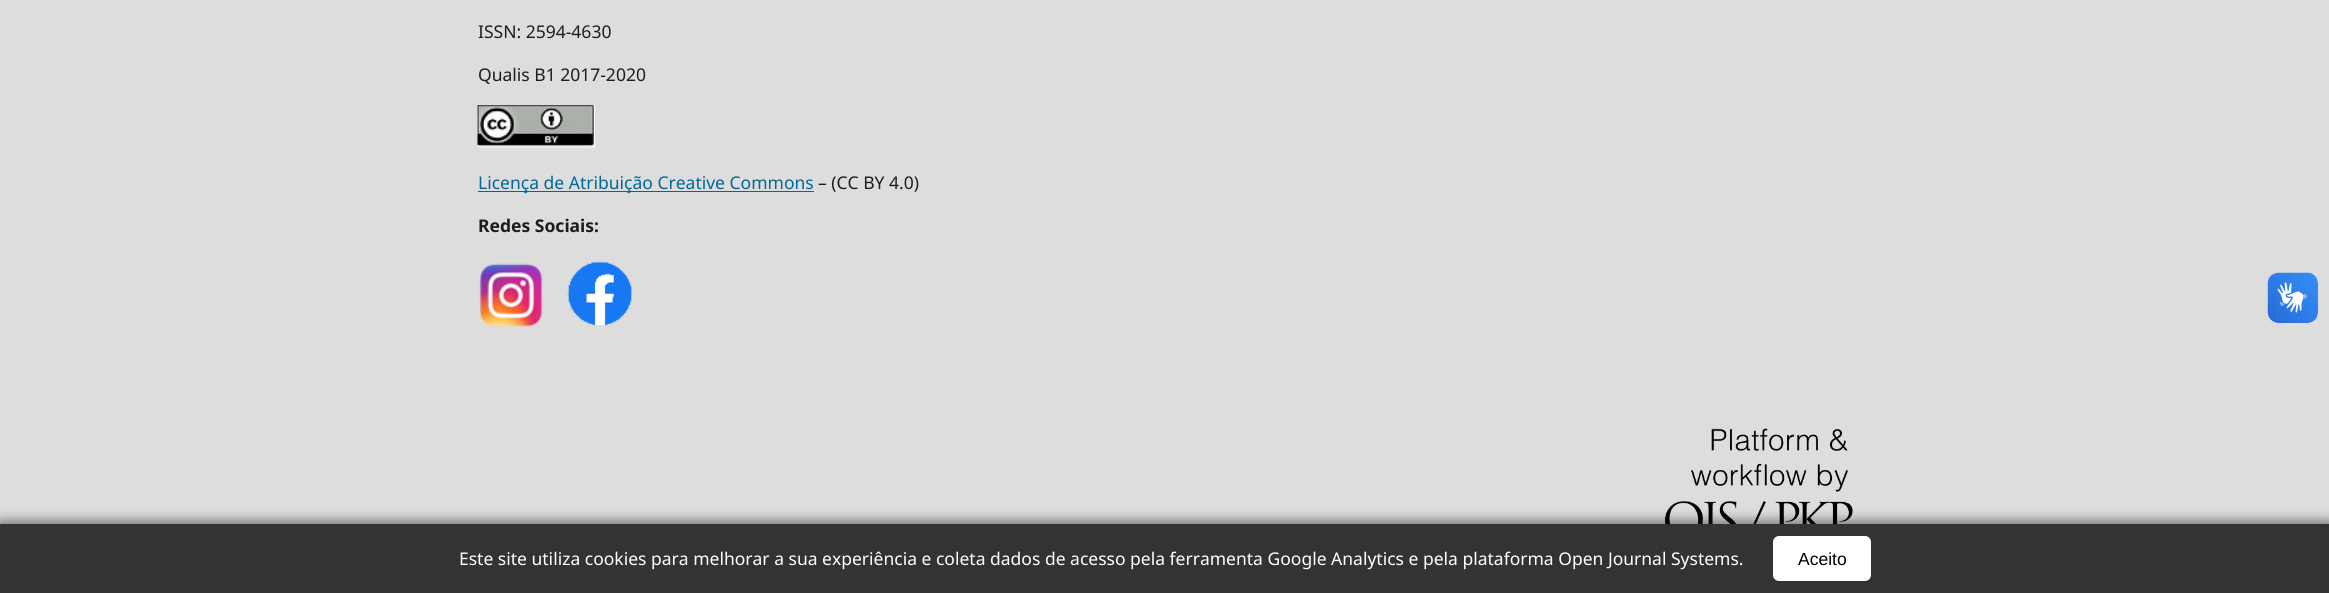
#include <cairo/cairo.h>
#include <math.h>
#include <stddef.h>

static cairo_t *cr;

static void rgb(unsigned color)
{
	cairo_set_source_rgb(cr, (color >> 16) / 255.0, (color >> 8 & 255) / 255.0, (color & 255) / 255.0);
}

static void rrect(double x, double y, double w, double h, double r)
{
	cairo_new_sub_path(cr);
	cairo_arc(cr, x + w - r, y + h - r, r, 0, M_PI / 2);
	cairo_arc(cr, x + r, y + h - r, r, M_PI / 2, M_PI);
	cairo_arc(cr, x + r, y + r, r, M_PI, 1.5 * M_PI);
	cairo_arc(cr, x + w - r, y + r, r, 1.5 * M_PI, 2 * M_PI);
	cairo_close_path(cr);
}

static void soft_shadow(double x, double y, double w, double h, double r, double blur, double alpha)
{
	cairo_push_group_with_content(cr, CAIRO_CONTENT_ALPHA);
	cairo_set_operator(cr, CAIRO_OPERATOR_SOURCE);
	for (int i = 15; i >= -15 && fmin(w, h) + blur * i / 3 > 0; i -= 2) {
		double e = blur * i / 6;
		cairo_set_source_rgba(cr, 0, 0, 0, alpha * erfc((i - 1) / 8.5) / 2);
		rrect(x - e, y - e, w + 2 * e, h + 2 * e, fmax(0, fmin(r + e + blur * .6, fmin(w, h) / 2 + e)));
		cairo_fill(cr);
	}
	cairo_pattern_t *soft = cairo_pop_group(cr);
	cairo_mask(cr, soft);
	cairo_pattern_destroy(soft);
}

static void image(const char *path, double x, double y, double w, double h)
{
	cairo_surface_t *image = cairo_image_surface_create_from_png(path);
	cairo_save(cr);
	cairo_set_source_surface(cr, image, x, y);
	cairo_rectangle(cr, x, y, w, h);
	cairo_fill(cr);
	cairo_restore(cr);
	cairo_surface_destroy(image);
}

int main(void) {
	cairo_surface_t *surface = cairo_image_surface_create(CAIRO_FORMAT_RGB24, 2329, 593);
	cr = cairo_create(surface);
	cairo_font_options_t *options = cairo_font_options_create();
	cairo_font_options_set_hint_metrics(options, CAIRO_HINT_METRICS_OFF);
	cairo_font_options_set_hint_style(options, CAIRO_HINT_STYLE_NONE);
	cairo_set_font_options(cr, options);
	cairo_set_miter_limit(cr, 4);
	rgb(0xdddddd);
	cairo_paint(cr);
	image("img/1.png", 477, 105, 118, 43);
	rgb(0x006798);
	cairo_rectangle(cr, 478, 191, 336, 1);
	cairo_fill(cr);
	image("img/2.png", 479, 263, 64, 64);
	image("img/3.png", 567, 261, 65, 65);
	image("img/4.png", 1665, 428, 188, 96);
	image("img/5.png", 2267, 272, 51, 51);
	image("img/6.png", 2268, 273, 50, 50);
	rgb(0x000000);
	soft_shadow(0, 521, 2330, 70, 0, 6, 0.5);
	rgb(0x333333);
	cairo_rectangle(cr, 0, 524, 2329, 69);
	cairo_fill(cr);
	rgb(0xffffff);
	rrect(1773, 536, 98, 45, 6);
	cairo_fill(cr);
	cairo_select_font_face(cr, "Noto Sans", CAIRO_FONT_SLANT_NORMAL, CAIRO_FONT_WEIGHT_NORMAL);
	cairo_set_font_size(cr, 17.5);
	rgb(0x1d1d1d);
	cairo_move_to(cr, 478, 38);
	cairo_show_text(cr, "ISSN: 2594-4630");
	cairo_move_to(cr, 478, 81);
	cairo_show_text(cr, "Qualis B1 2017-2020");
	rgb(0x006798);
	cairo_move_to(cr, 478, 189);
	cairo_show_text(cr, "Licença de Atribuição Creative Commons");
	rgb(0x1d1d1d);
	cairo_move_to(cr, 818, 189);
	cairo_show_text(cr, "– (CC BY 4.0)");
	cairo_select_font_face(cr, "Noto Sans", CAIRO_FONT_SLANT_NORMAL, CAIRO_FONT_WEIGHT_BOLD);
	cairo_move_to(cr, 478, 232);
	cairo_show_text(cr, "Redes Sociais:");
	cairo_select_font_face(cr, "Noto Sans", CAIRO_FONT_SLANT_NORMAL, CAIRO_FONT_WEIGHT_NORMAL);
	rgb(0xffffff);
	cairo_move_to(cr, 459, 565);
	cairo_show_text(cr, "Este site utiliza cookies para melhorar a sua experiência e coleta dados de acesso pela ferramenta Google Analytics e pela plataforma Open Journal Systems.");
	cairo_select_font_face(cr, "Liberation Sans", CAIRO_FONT_SLANT_NORMAL, CAIRO_FONT_WEIGHT_NORMAL);
	rgb(0x000000);
	cairo_move_to(cr, 1798, 565);
	cairo_show_text(cr, "Aceito");
	cairo_surface_write_to_png(surface, "page.png");
	cairo_font_options_destroy(options);
	cairo_destroy(cr);
	cairo_surface_destroy(surface);
	return 0;
}
